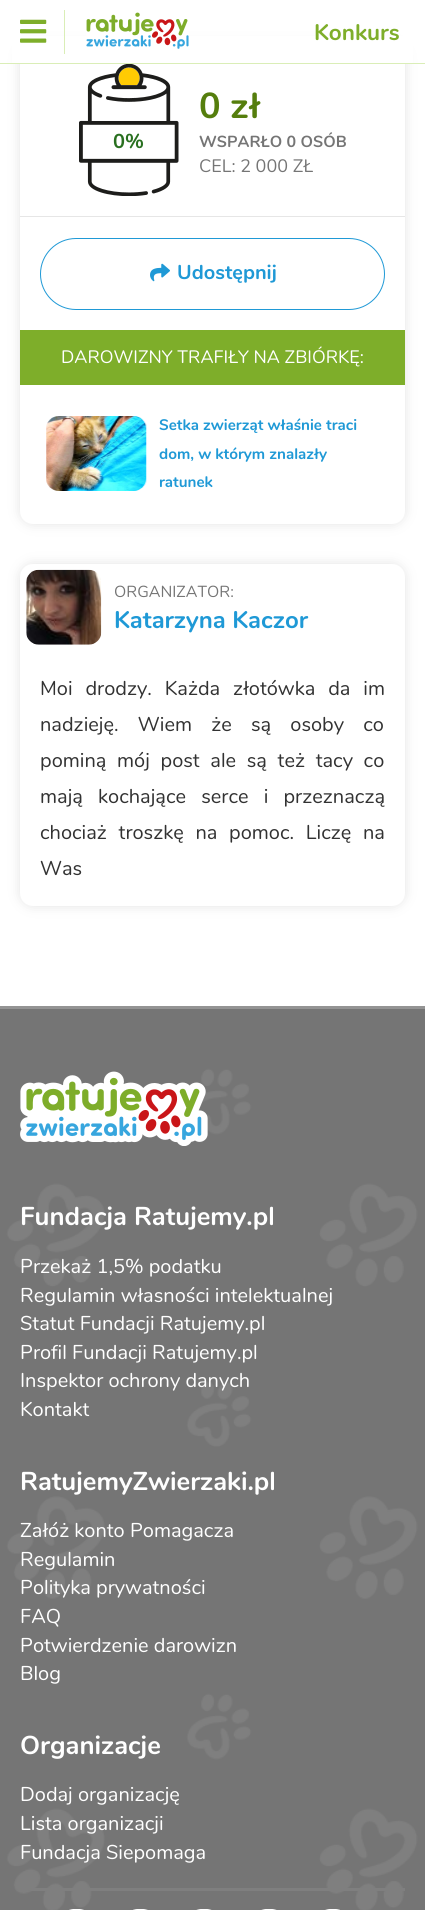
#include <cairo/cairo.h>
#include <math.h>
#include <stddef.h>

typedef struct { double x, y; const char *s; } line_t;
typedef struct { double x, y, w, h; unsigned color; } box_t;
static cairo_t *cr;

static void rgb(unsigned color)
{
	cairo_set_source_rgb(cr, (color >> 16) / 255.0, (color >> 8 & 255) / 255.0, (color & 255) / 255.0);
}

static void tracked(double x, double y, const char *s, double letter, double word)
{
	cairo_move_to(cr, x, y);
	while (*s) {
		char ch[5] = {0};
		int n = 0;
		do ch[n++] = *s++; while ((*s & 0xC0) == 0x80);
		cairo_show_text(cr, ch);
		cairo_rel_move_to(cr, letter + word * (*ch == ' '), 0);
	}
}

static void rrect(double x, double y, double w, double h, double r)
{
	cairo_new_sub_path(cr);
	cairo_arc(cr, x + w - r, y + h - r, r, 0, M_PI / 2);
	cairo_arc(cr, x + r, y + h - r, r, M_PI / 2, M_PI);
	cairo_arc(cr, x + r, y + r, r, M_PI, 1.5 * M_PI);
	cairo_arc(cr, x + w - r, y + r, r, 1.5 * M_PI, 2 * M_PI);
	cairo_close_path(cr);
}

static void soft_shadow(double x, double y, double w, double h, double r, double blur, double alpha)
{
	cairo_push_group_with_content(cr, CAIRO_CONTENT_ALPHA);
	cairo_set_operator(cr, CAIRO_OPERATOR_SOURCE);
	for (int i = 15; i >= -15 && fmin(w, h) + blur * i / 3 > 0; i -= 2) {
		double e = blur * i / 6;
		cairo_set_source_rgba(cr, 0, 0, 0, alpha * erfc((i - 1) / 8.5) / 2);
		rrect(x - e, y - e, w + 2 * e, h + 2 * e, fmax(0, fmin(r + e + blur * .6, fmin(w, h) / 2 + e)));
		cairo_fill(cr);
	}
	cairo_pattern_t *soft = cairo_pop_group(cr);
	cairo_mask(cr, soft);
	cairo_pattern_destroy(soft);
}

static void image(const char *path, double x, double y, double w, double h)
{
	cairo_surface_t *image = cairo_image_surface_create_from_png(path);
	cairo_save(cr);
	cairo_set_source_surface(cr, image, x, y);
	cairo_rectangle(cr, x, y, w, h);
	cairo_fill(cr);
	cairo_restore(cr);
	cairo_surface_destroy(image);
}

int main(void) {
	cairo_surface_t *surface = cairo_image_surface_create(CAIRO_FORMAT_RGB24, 425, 1910);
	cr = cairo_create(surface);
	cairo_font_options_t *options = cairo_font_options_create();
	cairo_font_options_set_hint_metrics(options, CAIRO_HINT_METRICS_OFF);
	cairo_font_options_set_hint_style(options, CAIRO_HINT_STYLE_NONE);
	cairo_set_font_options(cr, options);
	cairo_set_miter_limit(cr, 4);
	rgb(0xffffff);
	cairo_paint(cr);
	rgb(0xe4e4e4);
	soft_shadow(20, 44, 385, 480, 13, 6, 1);
	rgb(0xffffff);
	rrect(20, 44, 385, 480, 13);
	cairo_fill(cr);
	{
		static const box_t items[] = {
			{12, 36, 401, 27, 0xffffff},
			{0, 63, 425, 1, 0xdaeeb7},
			{64, 10, 1, 44, 0xdaeeb7},
		};
		for (size_t i = 0; i < sizeof items / sizeof *items; i++) {
			rgb(items[i].color);
			cairo_rectangle(cr, items[i].x, items[i].y, items[i].w, items[i].h);
			cairo_fill(cr);
		}
	}
	image("img/1.png", 20, 19, 27, 24);
	image("img/2.png", 86, 12, 103, 37);
	image("img/3.png", 79, 64, 100, 132);
	rgb(0xe6e6e6);
	cairo_rectangle(cr, 20, 216, 385, 1);
	cairo_fill(cr);
	rrect(40.5, 238.5, 344, 71, 35.5);
	rgb(0x1f99d6);
	cairo_set_line_width(cr, 1);
	cairo_stroke(cr);
	image("img/4.png", 150, 263, 20, 19);
	rgb(0x7eae2a);
	cairo_rectangle(cr, 20, 330, 385, 55);
	cairo_fill(cr);
	image("img/5.png", 46, 416, 101, 75);
	rgb(0xe4e4e4);
	soft_shadow(20, 564, 385, 342, 13, 6, 1);
	rgb(0xffffff);
	rrect(20, 564, 385, 342, 13);
	cairo_fill(cr);
	image("img/6.png", 26, 569, 76, 76);
	image("img/7.png", 0, 1009, 425, 901);
	rgb(0x949494);
	cairo_rectangle(cr, 0, 1006, 425, 3);
	cairo_fill(cr);
	rgb(0x7f7f7f);
	cairo_rectangle(cr, 31, 1888, 374, 3);
	cairo_fill(cr);
	image("img/8.png", 20, 1071, 188, 75);
	image("img/9.png", 69, 1909, 15, 1);
	image("img/10.png", 133, 1909, 15, 1);
	image("img/11.png", 196, 1909, 16, 1);
	image("img/11.png", 261, 1909, 16, 1);
	image("img/12.png", 325, 1909, 15, 1);
	cairo_select_font_face(cr, "Nunito", CAIRO_FONT_SLANT_NORMAL, CAIRO_FONT_WEIGHT_BOLD);
	cairo_set_font_size(cr, 22.5);
	rgb(0x7eae2a);
	cairo_move_to(cr, 314, 40);
	cairo_show_text(cr, "Konkurs");
	cairo_set_font_size(cr, 20);
	rgb(0x297020);
	cairo_move_to(cr, 113, 148);
	cairo_show_text(cr, "0%");
	cairo_set_font_size(cr, 36);
	rgb(0x557e0d);
	cairo_move_to(cr, 199, 118);
	cairo_show_text(cr, "0 zł");
	cairo_set_font_size(cr, 16);
	rgb(0x757575);
	cairo_move_to(cr, 199, 147);
	cairo_show_text(cr, "WSPARŁO 0 OSÓB");
	cairo_select_font_face(cr, "Nunito", CAIRO_FONT_SLANT_NORMAL, CAIRO_FONT_WEIGHT_NORMAL);
	cairo_set_font_size(cr, 18);
	cairo_move_to(cr, 199, 172);
	cairo_show_text(cr, "CEL: 2 000 ZŁ");
	cairo_select_font_face(cr, "Nunito", CAIRO_FONT_SLANT_NORMAL, CAIRO_FONT_WEIGHT_BOLD);
	cairo_set_font_size(cr, 20);
	rgb(0x1f99d6);
	cairo_move_to(cr, 177, 279);
	cairo_show_text(cr, "Udostępnij");
	cairo_select_font_face(cr, "Nunito", CAIRO_FONT_SLANT_NORMAL, CAIRO_FONT_WEIGHT_NORMAL);
	cairo_set_font_size(cr, 18);
	rgb(0xffffff);
	cairo_move_to(cr, 61, 363);
	cairo_show_text(cr, "DAROWIZNY TRAFIŁY NA ZBIÓRKĘ:");
	cairo_select_font_face(cr, "Nunito", CAIRO_FONT_SLANT_NORMAL, CAIRO_FONT_WEIGHT_BOLD);
	cairo_set_font_size(cr, 15.25);
	rgb(0x1f99d6);
	{
		static const line_t items[] = {
			{159, 430, "Setka zwierząt właśnie traci"},
			{159, 459, "dom, w którym znalazły"},
			{159, 487, "ratunek"},
		};
		for (size_t i = 0; i < sizeof items / sizeof *items; i++) {
			cairo_move_to(cr, items[i].x, items[i].y);
			cairo_show_text(cr, items[i].s);
		}
	}
	cairo_select_font_face(cr, "Nunito", CAIRO_FONT_SLANT_NORMAL, CAIRO_FONT_WEIGHT_NORMAL);
	cairo_set_font_size(cr, 16);
	rgb(0x757575);
	cairo_move_to(cr, 114, 597);
	cairo_show_text(cr, "ORGANIZATOR:");
	cairo_select_font_face(cr, "Nunito", CAIRO_FONT_SLANT_NORMAL, CAIRO_FONT_WEIGHT_BOLD);
	cairo_set_font_size(cr, 24);
	rgb(0x1f99d6);
	cairo_move_to(cr, 114, 628);
	cairo_show_text(cr, "Katarzyna Kaczor");
	cairo_select_font_face(cr, "Nunito", CAIRO_FONT_SLANT_NORMAL, CAIRO_FONT_WEIGHT_NORMAL);
	cairo_set_font_size(cr, 20);
	rgb(0x323232);
	tracked(40, 695, "Moi drodzy. Każda złotówka da im", 0, 7.75);
	tracked(40, 731, "nadzieję. Wiem że są osoby co", 0, 14);
	tracked(40, 767, "pominą mój post ale są też tacy co", 0, 5.5);
	tracked(40, 803, "mają kochające serce i przeznaczą", 0, 10);
	tracked(40, 839, "chociaż troszkę na pomoc. Liczę na", 0, 6.5);
	cairo_move_to(cr, 40, 875);
	cairo_show_text(cr, "Was");
	cairo_select_font_face(cr, "Nunito", CAIRO_FONT_SLANT_NORMAL, CAIRO_FONT_WEIGHT_BOLD);
	cairo_set_font_size(cr, 25.75);
	rgb(0xffffff);
	cairo_move_to(cr, 20, 1225);
	cairo_show_text(cr, "Fundacja Ratujemy.pl");
	cairo_select_font_face(cr, "Nunito", CAIRO_FONT_SLANT_NORMAL, CAIRO_FONT_WEIGHT_NORMAL);
	cairo_set_font_size(cr, 20);
	{
		static const line_t items[] = {
			{20, 1273, "Przekaż 1,5% podatku"},
			{20, 1302, "Regulamin własności intelektualnej"},
			{20, 1330, "Statut Fundacji Ratujemy.pl"},
			{20, 1359, "Profil Fundacji Ratujemy.pl"},
			{20, 1387, "Inspektor ochrony danych"},
			{20, 1416, "Kontakt"},
		};
		for (size_t i = 0; i < sizeof items / sizeof *items; i++) {
			cairo_move_to(cr, items[i].x, items[i].y);
			cairo_show_text(cr, items[i].s);
		}
	}
	cairo_select_font_face(cr, "Nunito", CAIRO_FONT_SLANT_NORMAL, CAIRO_FONT_WEIGHT_BOLD);
	cairo_set_font_size(cr, 25.75);
	cairo_move_to(cr, 20, 1490);
	cairo_show_text(cr, "RatujemyZwierzaki.pl");
	cairo_select_font_face(cr, "Nunito", CAIRO_FONT_SLANT_NORMAL, CAIRO_FONT_WEIGHT_NORMAL);
	cairo_set_font_size(cr, 20);
	{
		static const line_t items[] = {
			{20, 1537, "Załóż konto Pomagacza"},
			{20, 1566, "Regulamin"},
			{20, 1594, "Polityka prywatności"},
			{20, 1623, "FAQ"},
			{20, 1652, "Potwierdzenie darowizn"},
			{20, 1680, "Blog"},
		};
		for (size_t i = 0; i < sizeof items / sizeof *items; i++) {
			cairo_move_to(cr, items[i].x, items[i].y);
			cairo_show_text(cr, items[i].s);
		}
	}
	cairo_select_font_face(cr, "Nunito", CAIRO_FONT_SLANT_NORMAL, CAIRO_FONT_WEIGHT_BOLD);
	cairo_set_font_size(cr, 25.75);
	cairo_move_to(cr, 20, 1754);
	cairo_show_text(cr, "Organizacje");
	cairo_select_font_face(cr, "Nunito", CAIRO_FONT_SLANT_NORMAL, CAIRO_FONT_WEIGHT_NORMAL);
	cairo_set_font_size(cr, 20);
	{
		static const line_t items[] = {
			{20, 1801, "Dodaj organizację"},
			{20, 1830, "Lista organizacji"},
			{20, 1859, "Fundacja Siepomaga"},
		};
		for (size_t i = 0; i < sizeof items / sizeof *items; i++) {
			cairo_move_to(cr, items[i].x, items[i].y);
			cairo_show_text(cr, items[i].s);
		}
	}
	cairo_surface_write_to_png(surface, "page.png");
	cairo_font_options_destroy(options);
	cairo_destroy(cr);
	cairo_surface_destroy(surface);
	return 0;
}
